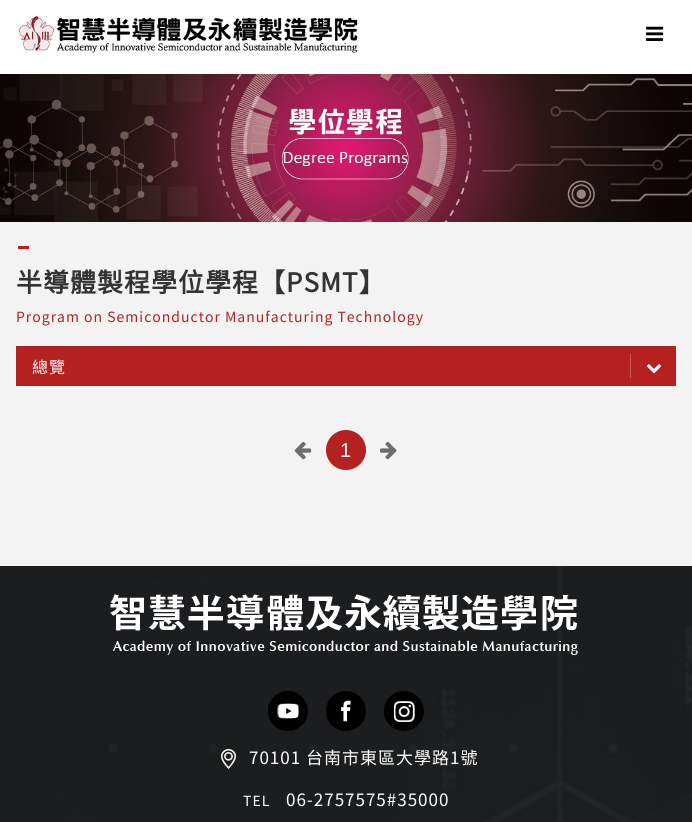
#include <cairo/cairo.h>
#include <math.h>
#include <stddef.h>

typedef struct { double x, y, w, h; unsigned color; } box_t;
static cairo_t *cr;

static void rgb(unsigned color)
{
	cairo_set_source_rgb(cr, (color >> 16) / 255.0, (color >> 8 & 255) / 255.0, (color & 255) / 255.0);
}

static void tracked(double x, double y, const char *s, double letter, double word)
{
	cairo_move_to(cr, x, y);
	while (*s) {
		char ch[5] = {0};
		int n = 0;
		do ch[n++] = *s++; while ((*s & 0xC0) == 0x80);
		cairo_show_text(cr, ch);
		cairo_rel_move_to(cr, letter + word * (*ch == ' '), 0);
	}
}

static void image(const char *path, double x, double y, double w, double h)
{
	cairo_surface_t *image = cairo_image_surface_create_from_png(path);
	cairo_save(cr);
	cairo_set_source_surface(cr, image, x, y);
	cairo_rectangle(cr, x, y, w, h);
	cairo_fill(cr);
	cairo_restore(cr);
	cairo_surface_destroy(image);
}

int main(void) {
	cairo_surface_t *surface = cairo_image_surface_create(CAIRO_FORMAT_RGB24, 692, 822);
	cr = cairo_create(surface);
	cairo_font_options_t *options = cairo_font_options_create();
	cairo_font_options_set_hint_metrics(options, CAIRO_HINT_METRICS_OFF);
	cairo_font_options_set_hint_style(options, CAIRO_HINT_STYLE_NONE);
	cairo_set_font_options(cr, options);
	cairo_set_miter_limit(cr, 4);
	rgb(0xffffff);
	cairo_paint(cr);
	image("img/1.png", 18, 16, 340, 37);
	image("img/2.png", 646, 26, 18, 15);
	image("img/3.png", 0, 74, 692, 148);
	{
		static const box_t items[] = {
			{0, 222, 692, 344, 0xf3f3f3},
			{18, 246, 11, 3, 0xb52121},
			{16, 346, 660, 40, 0xb52121},
			{630, 354, 1, 24, 0xc85959},
		};
		for (size_t i = 0; i < sizeof items / sizeof *items; i++) {
			rgb(items[i].color);
			cairo_rectangle(cr, items[i].x, items[i].y, items[i].w, items[i].h);
			cairo_fill(cr);
		}
	}
	image("img/4.png", 646, 364, 16, 10);
	image("img/5.png", 294, 441, 18, 19);
	rgb(0xb52121);
	cairo_arc(cr, 346, 450, 20, 0, 2 * M_PI);
	cairo_fill(cr);
	image("img/6.png", 380, 441, 17, 19);
	image("img/7.png", 0, 566, 692, 256);
	image("img/8.png", 110, 594, 468, 61);
	image("img/9.png", 268, 691, 40, 40);
	image("img/10.png", 326, 691, 40, 40);
	image("img/11.png", 384, 691, 40, 40);
	image("img/12.png", 221, 749, 15, 20);
	cairo_select_font_face(cr, "Noto Sans TC", CAIRO_FONT_SLANT_NORMAL, CAIRO_FONT_WEIGHT_BOLD);
	cairo_set_font_size(cr, 26);
	rgb(0x333333);
	tracked(16, 292, "半導體製程學位學程【PSMT】", 1, 0);
	cairo_select_font_face(cr, "Noto Sans TC Thin", CAIRO_FONT_SLANT_NORMAL, CAIRO_FONT_WEIGHT_NORMAL);
	cairo_set_font_size(cr, 14);
	rgb(0xb52121);
	tracked(16, 322, "Program on Semiconductor Manufacturing Technology", 1, 0);
	cairo_set_font_size(cr, 16);
	rgb(0xffffff);
	tracked(32, 373, "總覽", 1, 0);
	cairo_select_font_face(cr, "Liberation Sans", CAIRO_FONT_SLANT_NORMAL, CAIRO_FONT_WEIGHT_NORMAL);
	cairo_set_font_size(cr, 20);
	tracked(340, 457, "1", 1, 0);
	cairo_select_font_face(cr, "Noto Sans TC Thin", CAIRO_FONT_SLANT_NORMAL, CAIRO_FONT_WEIGHT_NORMAL);
	cairo_set_font_size(cr, 17);
	tracked(249, 764, "70101 台南市東區大學路1號", 1, 0);
	cairo_set_font_size(cr, 14);
	tracked(243, 806, "TEL", 1, 0);
	cairo_set_font_size(cr, 17);
	tracked(286, 806, "06-2757575#35000", 1, 0);
	cairo_surface_write_to_png(surface, "page.png");
	cairo_font_options_destroy(options);
	cairo_destroy(cr);
	cairo_surface_destroy(surface);
	return 0;
}
